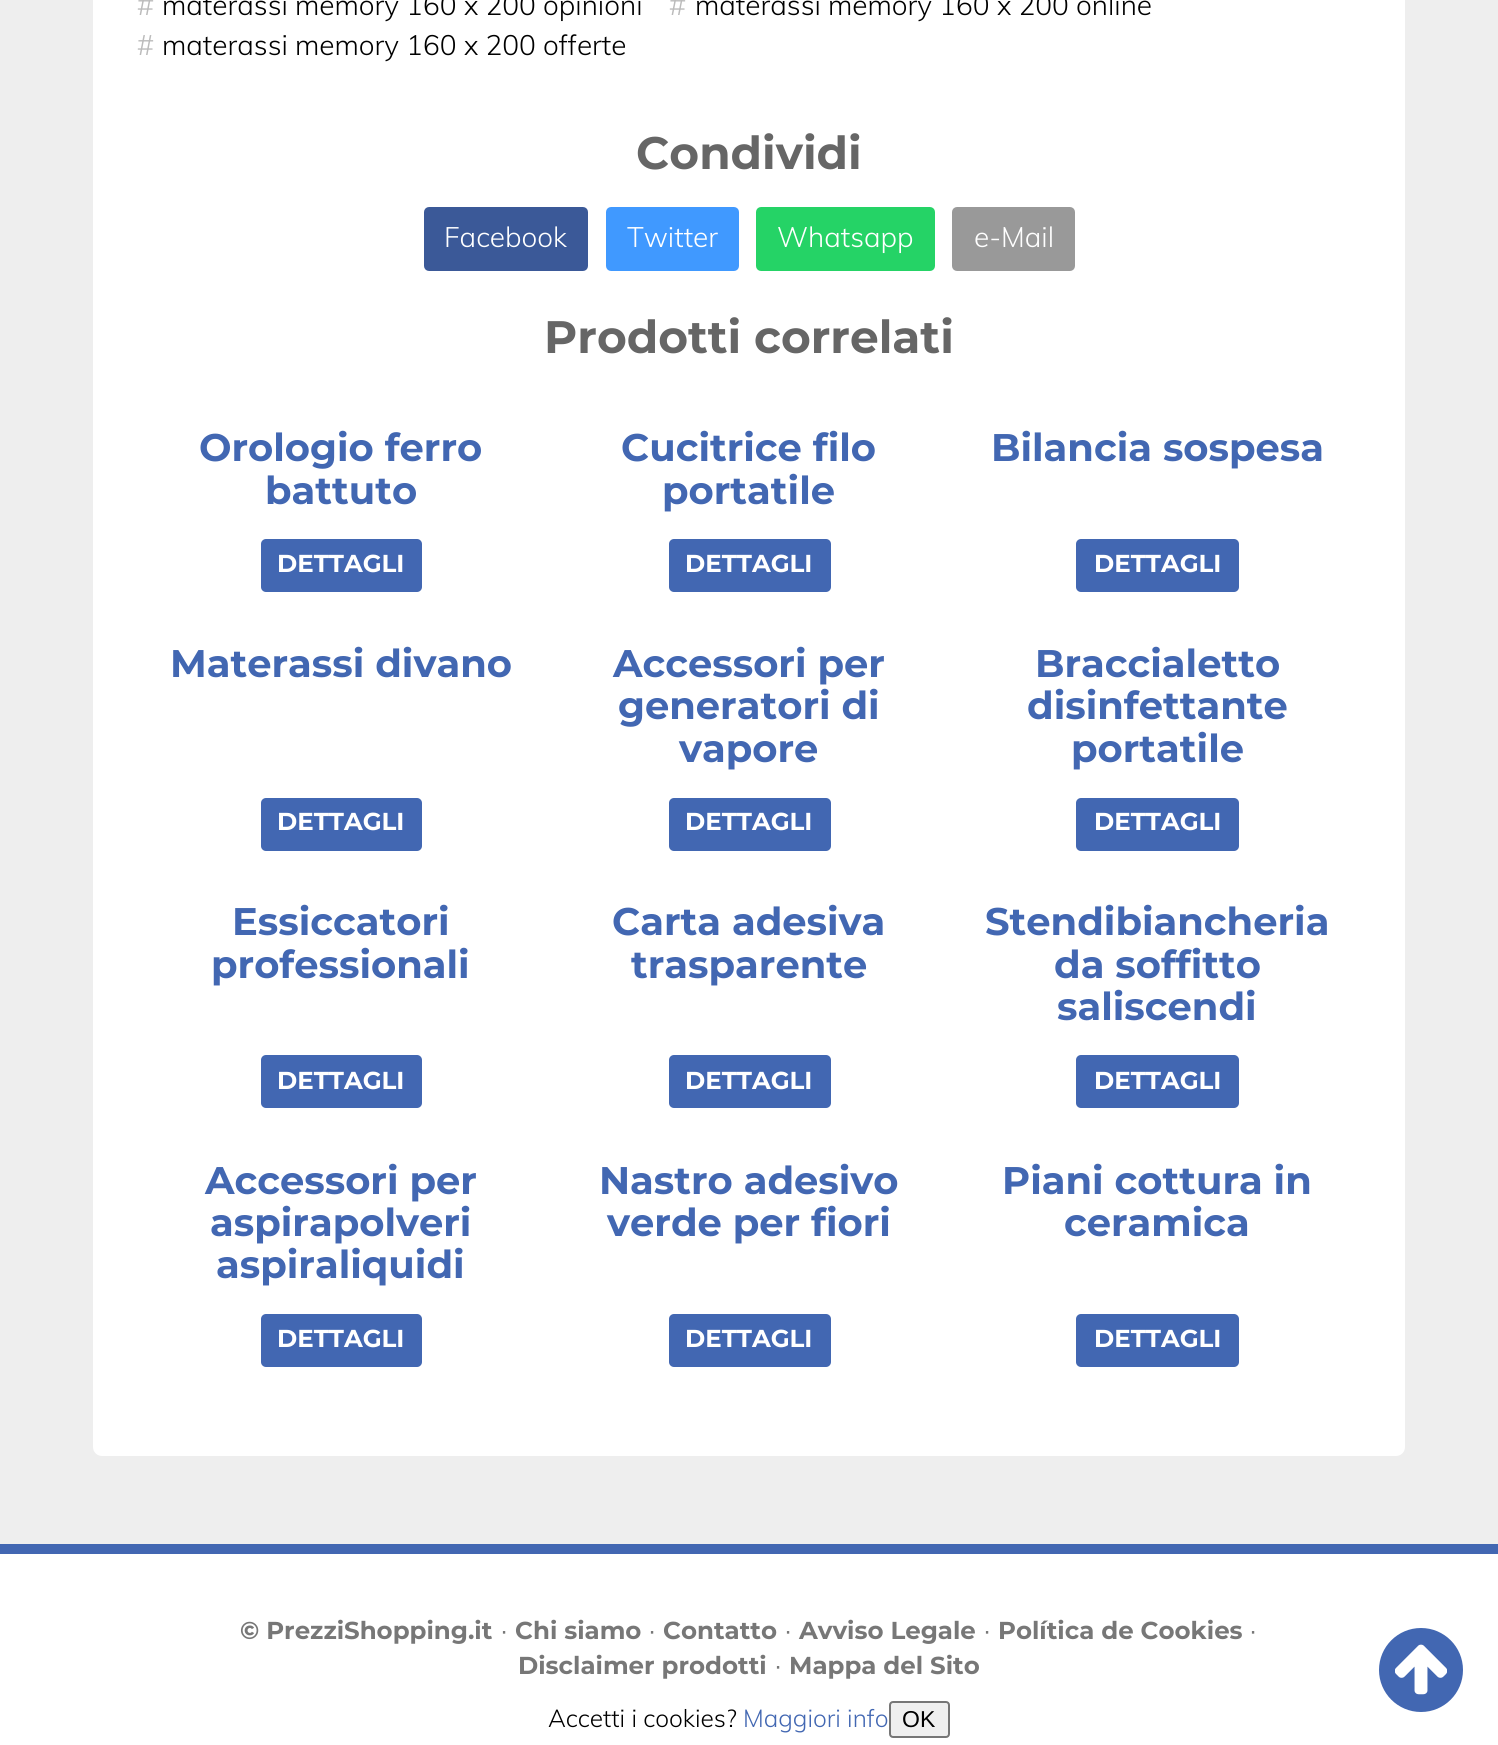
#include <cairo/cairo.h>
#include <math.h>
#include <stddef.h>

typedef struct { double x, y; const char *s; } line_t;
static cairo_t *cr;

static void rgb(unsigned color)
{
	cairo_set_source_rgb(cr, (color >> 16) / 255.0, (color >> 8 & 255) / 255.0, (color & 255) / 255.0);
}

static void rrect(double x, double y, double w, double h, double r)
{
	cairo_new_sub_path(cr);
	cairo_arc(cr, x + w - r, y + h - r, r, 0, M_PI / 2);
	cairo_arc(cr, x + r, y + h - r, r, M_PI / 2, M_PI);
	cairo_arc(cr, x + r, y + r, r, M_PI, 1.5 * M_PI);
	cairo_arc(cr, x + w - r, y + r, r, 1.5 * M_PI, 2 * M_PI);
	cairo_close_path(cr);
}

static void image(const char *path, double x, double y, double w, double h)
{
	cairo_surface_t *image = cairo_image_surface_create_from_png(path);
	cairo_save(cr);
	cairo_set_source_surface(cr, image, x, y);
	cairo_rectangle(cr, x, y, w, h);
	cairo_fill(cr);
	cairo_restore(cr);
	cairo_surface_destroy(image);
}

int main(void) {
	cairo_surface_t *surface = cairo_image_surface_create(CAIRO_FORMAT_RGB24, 1498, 1745);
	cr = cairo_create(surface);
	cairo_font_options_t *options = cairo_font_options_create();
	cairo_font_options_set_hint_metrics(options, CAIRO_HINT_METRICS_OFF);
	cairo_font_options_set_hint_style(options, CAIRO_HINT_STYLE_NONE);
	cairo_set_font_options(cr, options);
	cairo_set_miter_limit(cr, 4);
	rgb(0xeeeeee);
	cairo_paint(cr);
	rgb(0xffffff);
	rrect(93, -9, 1312, 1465, 9);
	cairo_fill(cr);
	rgb(0x3b5998);
	rrect(426, 209, 160, 60, 3);
	cairo_fill_preserve(cr);
	cairo_set_line_width(cr, 4);
	cairo_stroke(cr);
	rgb(0x4099ff);
	rrect(608, 209, 129, 60, 3);
	cairo_fill_preserve(cr);
	cairo_stroke(cr);
	rgb(0x25d366);
	rrect(758, 209, 175, 60, 3);
	cairo_fill_preserve(cr);
	cairo_stroke(cr);
	rgb(0x999999);
	rrect(954, 209, 119, 60, 3);
	cairo_fill_preserve(cr);
	cairo_stroke(cr);
	rgb(0x4267b2);
	rrect(261, 539, 161, 53, 5);
	cairo_fill(cr);
	rrect(669, 539, 162, 53, 5);
	cairo_fill(cr);
	rrect(1076, 539, 163, 53, 5);
	cairo_fill(cr);
	rrect(261, 798, 161, 53, 5);
	cairo_fill(cr);
	rrect(669, 798, 162, 53, 5);
	cairo_fill(cr);
	rrect(1076, 798, 163, 53, 5);
	cairo_fill(cr);
	rrect(261, 1055, 161, 53, 5);
	cairo_fill(cr);
	rrect(669, 1055, 162, 53, 5);
	cairo_fill(cr);
	rrect(1076, 1055, 163, 53, 5);
	cairo_fill(cr);
	rrect(261, 1314, 161, 53, 5);
	cairo_fill(cr);
	rrect(669, 1314, 162, 53, 5);
	cairo_fill(cr);
	rrect(1076, 1314, 163, 53, 5);
	cairo_fill(cr);
	rgb(0xffffff);
	cairo_rectangle(cr, 0, 1554, 1498, 191);
	cairo_fill(cr);
	rgb(0x4267b2);
	cairo_rectangle(cr, 0, 1544, 1498, 10);
	cairo_fill(cr);
	cairo_arc(cr, 1421, 1670, 45.5, 0, 2 * M_PI);
	cairo_fill_preserve(cr);
	rgb(0xffffff);
	cairo_set_line_width(cr, 7);
	cairo_stroke(cr);
	image("img/1.png", 1395, 1644, 52, 51);
	rgb(0xefefef);
	rrect(890, 1702, 59, 35, 3);
	cairo_fill_preserve(cr);
	rgb(0x767676);
	cairo_set_line_width(cr, 2);
	cairo_stroke(cr);
	cairo_select_font_face(cr, "Muli Light", CAIRO_FONT_SLANT_NORMAL, CAIRO_FONT_WEIGHT_NORMAL);
	cairo_set_font_size(cr, 28);
	rgb(0xbbbbbb);
	cairo_move_to(cr, 137, 15);
	cairo_show_text(cr, "#");
	rgb(0x000000);
	cairo_move_to(cr, 162, 15);
	cairo_show_text(cr, "materassi memory 160 x 200 opinioni");
	rgb(0xbbbbbb);
	cairo_move_to(cr, 669, 15);
	cairo_show_text(cr, "#");
	rgb(0x000000);
	cairo_move_to(cr, 695, 15);
	cairo_show_text(cr, "materassi memory 160 x 200 online");
	rgb(0xbbbbbb);
	cairo_move_to(cr, 137, 55);
	cairo_show_text(cr, "#");
	rgb(0x000000);
	cairo_move_to(cr, 162, 55);
	cairo_show_text(cr, "materassi memory 160 x 200 offerte");
	cairo_select_font_face(cr, "Montserrat", CAIRO_FONT_SLANT_NORMAL, CAIRO_FONT_WEIGHT_BOLD);
	cairo_set_font_size(cr, 45.5);
	rgb(0x666666);
	cairo_move_to(cr, 636, 169);
	cairo_show_text(cr, "Condividi");
	cairo_select_font_face(cr, "Muli Light", CAIRO_FONT_SLANT_NORMAL, CAIRO_FONT_WEIGHT_NORMAL);
	cairo_set_font_size(cr, 28);
	rgb(0xffffff);
	{
		static const line_t items[] = {
			{444, 247, "Facebook"},
			{627, 247, "Twitter"},
			{777, 247, "Whatsapp"},
			{974, 247, "e-Mail"},
		};
		for (size_t i = 0; i < sizeof items / sizeof *items; i++) {
			cairo_move_to(cr, items[i].x, items[i].y);
			cairo_show_text(cr, items[i].s);
		}
	}
	cairo_select_font_face(cr, "Montserrat", CAIRO_FONT_SLANT_NORMAL, CAIRO_FONT_WEIGHT_BOLD);
	cairo_set_font_size(cr, 45.5);
	rgb(0x666666);
	cairo_move_to(cr, 544, 353);
	cairo_show_text(cr, "Prodotti correlati");
	cairo_set_font_size(cr, 38.5);
	rgb(0x4267b2);
	cairo_move_to(cr, 199, 461);
	cairo_show_text(cr, "Orologio ferro");
	cairo_move_to(cr, 265, 504);
	cairo_show_text(cr, "battuto");
	cairo_set_font_size(cr, 24.5);
	rgb(0xffffff);
	cairo_move_to(cr, 277, 572);
	cairo_show_text(cr, "DETTAGLI");
	cairo_set_font_size(cr, 38.5);
	rgb(0x4267b2);
	cairo_move_to(cr, 621, 461);
	cairo_show_text(cr, "Cucitrice filo");
	cairo_move_to(cr, 662, 504);
	cairo_show_text(cr, "portatile");
	cairo_set_font_size(cr, 24.5);
	rgb(0xffffff);
	cairo_move_to(cr, 685, 572);
	cairo_show_text(cr, "DETTAGLI");
	cairo_set_font_size(cr, 38.5);
	rgb(0x4267b2);
	cairo_move_to(cr, 991, 461);
	cairo_show_text(cr, "Bilancia sospesa");
	cairo_set_font_size(cr, 24.5);
	rgb(0xffffff);
	cairo_move_to(cr, 1094, 572);
	cairo_show_text(cr, "DETTAGLI");
	cairo_set_font_size(cr, 38.5);
	rgb(0x4267b2);
	cairo_move_to(cr, 170, 677);
	cairo_show_text(cr, "Materassi divano");
	cairo_set_font_size(cr, 24.5);
	rgb(0xffffff);
	cairo_move_to(cr, 277, 830);
	cairo_show_text(cr, "DETTAGLI");
	cairo_set_font_size(cr, 38.5);
	rgb(0x4267b2);
	{
		static const line_t items[] = {
			{613, 677, "Accessori per"},
			{618, 719, "generatori di"},
			{679, 762, "vapore"},
		};
		for (size_t i = 0; i < sizeof items / sizeof *items; i++) {
			cairo_move_to(cr, items[i].x, items[i].y);
			cairo_show_text(cr, items[i].s);
		}
	}
	cairo_set_font_size(cr, 24.5);
	rgb(0xffffff);
	cairo_move_to(cr, 685, 830);
	cairo_show_text(cr, "DETTAGLI");
	cairo_set_font_size(cr, 38.5);
	rgb(0x4267b2);
	{
		static const line_t items[] = {
			{1035, 677, "Braccialetto"},
			{1027, 719, "disinfettante"},
			{1071, 762, "portatile"},
		};
		for (size_t i = 0; i < sizeof items / sizeof *items; i++) {
			cairo_move_to(cr, items[i].x, items[i].y);
			cairo_show_text(cr, items[i].s);
		}
	}
	cairo_set_font_size(cr, 24.5);
	rgb(0xffffff);
	cairo_move_to(cr, 1094, 830);
	cairo_show_text(cr, "DETTAGLI");
	cairo_set_font_size(cr, 38.5);
	rgb(0x4267b2);
	cairo_move_to(cr, 232, 935);
	cairo_show_text(cr, "Essiccatori");
	cairo_move_to(cr, 211, 978);
	cairo_show_text(cr, "professionali");
	cairo_set_font_size(cr, 24.5);
	rgb(0xffffff);
	cairo_move_to(cr, 277, 1089);
	cairo_show_text(cr, "DETTAGLI");
	cairo_set_font_size(cr, 38.5);
	rgb(0x4267b2);
	cairo_move_to(cr, 612, 935);
	cairo_show_text(cr, "Carta adesiva");
	cairo_move_to(cr, 631, 978);
	cairo_show_text(cr, "trasparente");
	cairo_set_font_size(cr, 24.5);
	rgb(0xffffff);
	cairo_move_to(cr, 685, 1089);
	cairo_show_text(cr, "DETTAGLI");
	cairo_set_font_size(cr, 38.5);
	rgb(0x4267b2);
	{
		static const line_t items[] = {
			{985, 935, "Stendibiancheria"},
			{1054, 978, "da soffitto"},
			{1057, 1020, "saliscendi"},
		};
		for (size_t i = 0; i < sizeof items / sizeof *items; i++) {
			cairo_move_to(cr, items[i].x, items[i].y);
			cairo_show_text(cr, items[i].s);
		}
	}
	cairo_set_font_size(cr, 24.5);
	rgb(0xffffff);
	cairo_move_to(cr, 1094, 1089);
	cairo_show_text(cr, "DETTAGLI");
	cairo_set_font_size(cr, 38.5);
	rgb(0x4267b2);
	{
		static const line_t items[] = {
			{205, 1194, "Accessori per"},
			{210, 1236, "aspirapolveri"},
			{216, 1278, "aspiraliquidi"},
		};
		for (size_t i = 0; i < sizeof items / sizeof *items; i++) {
			cairo_move_to(cr, items[i].x, items[i].y);
			cairo_show_text(cr, items[i].s);
		}
	}
	cairo_set_font_size(cr, 24.5);
	rgb(0xffffff);
	cairo_move_to(cr, 277, 1347);
	cairo_show_text(cr, "DETTAGLI");
	cairo_set_font_size(cr, 38.5);
	rgb(0x4267b2);
	cairo_move_to(cr, 599, 1194);
	cairo_show_text(cr, "Nastro adesivo");
	cairo_move_to(cr, 607, 1236);
	cairo_show_text(cr, "verde per fiori");
	cairo_set_font_size(cr, 24.5);
	rgb(0xffffff);
	cairo_move_to(cr, 685, 1347);
	cairo_show_text(cr, "DETTAGLI");
	cairo_set_font_size(cr, 38.5);
	rgb(0x4267b2);
	cairo_move_to(cr, 1002, 1194);
	cairo_show_text(cr, "Piani cottura in");
	cairo_move_to(cr, 1064, 1236);
	cairo_show_text(cr, "ceramica");
	cairo_set_font_size(cr, 24.5);
	rgb(0xffffff);
	cairo_move_to(cr, 1094, 1347);
	cairo_show_text(cr, "DETTAGLI");
	rgb(0x777777);
	cairo_move_to(cr, 240, 1639);
	cairo_show_text(cr, "© PrezziShopping.it");
	cairo_select_font_face(cr, "Liberation Sans", CAIRO_FONT_SLANT_NORMAL, CAIRO_FONT_WEIGHT_NORMAL);
	cairo_move_to(cr, 500, 1639);
	cairo_show_text(cr, "·");
	cairo_select_font_face(cr, "Montserrat", CAIRO_FONT_SLANT_NORMAL, CAIRO_FONT_WEIGHT_BOLD);
	cairo_move_to(cr, 515, 1639);
	cairo_show_text(cr, "Chi siamo");
	cairo_select_font_face(cr, "Liberation Sans", CAIRO_FONT_SLANT_NORMAL, CAIRO_FONT_WEIGHT_NORMAL);
	cairo_move_to(cr, 648, 1639);
	cairo_show_text(cr, "·");
	cairo_select_font_face(cr, "Montserrat", CAIRO_FONT_SLANT_NORMAL, CAIRO_FONT_WEIGHT_BOLD);
	cairo_move_to(cr, 663, 1639);
	cairo_show_text(cr, "Contatto");
	cairo_select_font_face(cr, "Liberation Sans", CAIRO_FONT_SLANT_NORMAL, CAIRO_FONT_WEIGHT_NORMAL);
	cairo_move_to(cr, 784, 1639);
	cairo_show_text(cr, "·");
	cairo_select_font_face(cr, "Montserrat", CAIRO_FONT_SLANT_NORMAL, CAIRO_FONT_WEIGHT_BOLD);
	cairo_move_to(cr, 799, 1639);
	cairo_show_text(cr, "Avviso Legale");
	cairo_select_font_face(cr, "Liberation Sans", CAIRO_FONT_SLANT_NORMAL, CAIRO_FONT_WEIGHT_NORMAL);
	cairo_move_to(cr, 983, 1639);
	cairo_show_text(cr, "·");
	cairo_select_font_face(cr, "Montserrat", CAIRO_FONT_SLANT_NORMAL, CAIRO_FONT_WEIGHT_BOLD);
	cairo_move_to(cr, 998, 1639);
	cairo_show_text(cr, "Política de Cookies");
	cairo_select_font_face(cr, "Liberation Sans", CAIRO_FONT_SLANT_NORMAL, CAIRO_FONT_WEIGHT_NORMAL);
	cairo_move_to(cr, 1249, 1639);
	cairo_show_text(cr, "·");
	cairo_select_font_face(cr, "Montserrat", CAIRO_FONT_SLANT_NORMAL, CAIRO_FONT_WEIGHT_BOLD);
	cairo_move_to(cr, 518, 1674);
	cairo_show_text(cr, "Disclaimer prodotti");
	cairo_select_font_face(cr, "Liberation Sans", CAIRO_FONT_SLANT_NORMAL, CAIRO_FONT_WEIGHT_NORMAL);
	cairo_move_to(cr, 774, 1674);
	cairo_show_text(cr, "·");
	cairo_select_font_face(cr, "Montserrat", CAIRO_FONT_SLANT_NORMAL, CAIRO_FONT_WEIGHT_BOLD);
	cairo_move_to(cr, 789, 1674);
	cairo_show_text(cr, "Mappa del Sito");
	cairo_select_font_face(cr, "Muli Light", CAIRO_FONT_SLANT_NORMAL, CAIRO_FONT_WEIGHT_NORMAL);
	rgb(0x000000);
	cairo_move_to(cr, 548, 1727);
	cairo_show_text(cr, "Accetti i cookies?");
	rgb(0x4267b2);
	cairo_move_to(cr, 743, 1727);
	cairo_show_text(cr, "Maggiori info");
	cairo_select_font_face(cr, "Liberation Sans", CAIRO_FONT_SLANT_NORMAL, CAIRO_FONT_WEIGHT_NORMAL);
	cairo_set_font_size(cr, 23);
	rgb(0x000000);
	cairo_move_to(cr, 902, 1727);
	cairo_show_text(cr, "OK");
	cairo_surface_write_to_png(surface, "page.png");
	cairo_font_options_destroy(options);
	cairo_destroy(cr);
	cairo_surface_destroy(surface);
	return 0;
}
